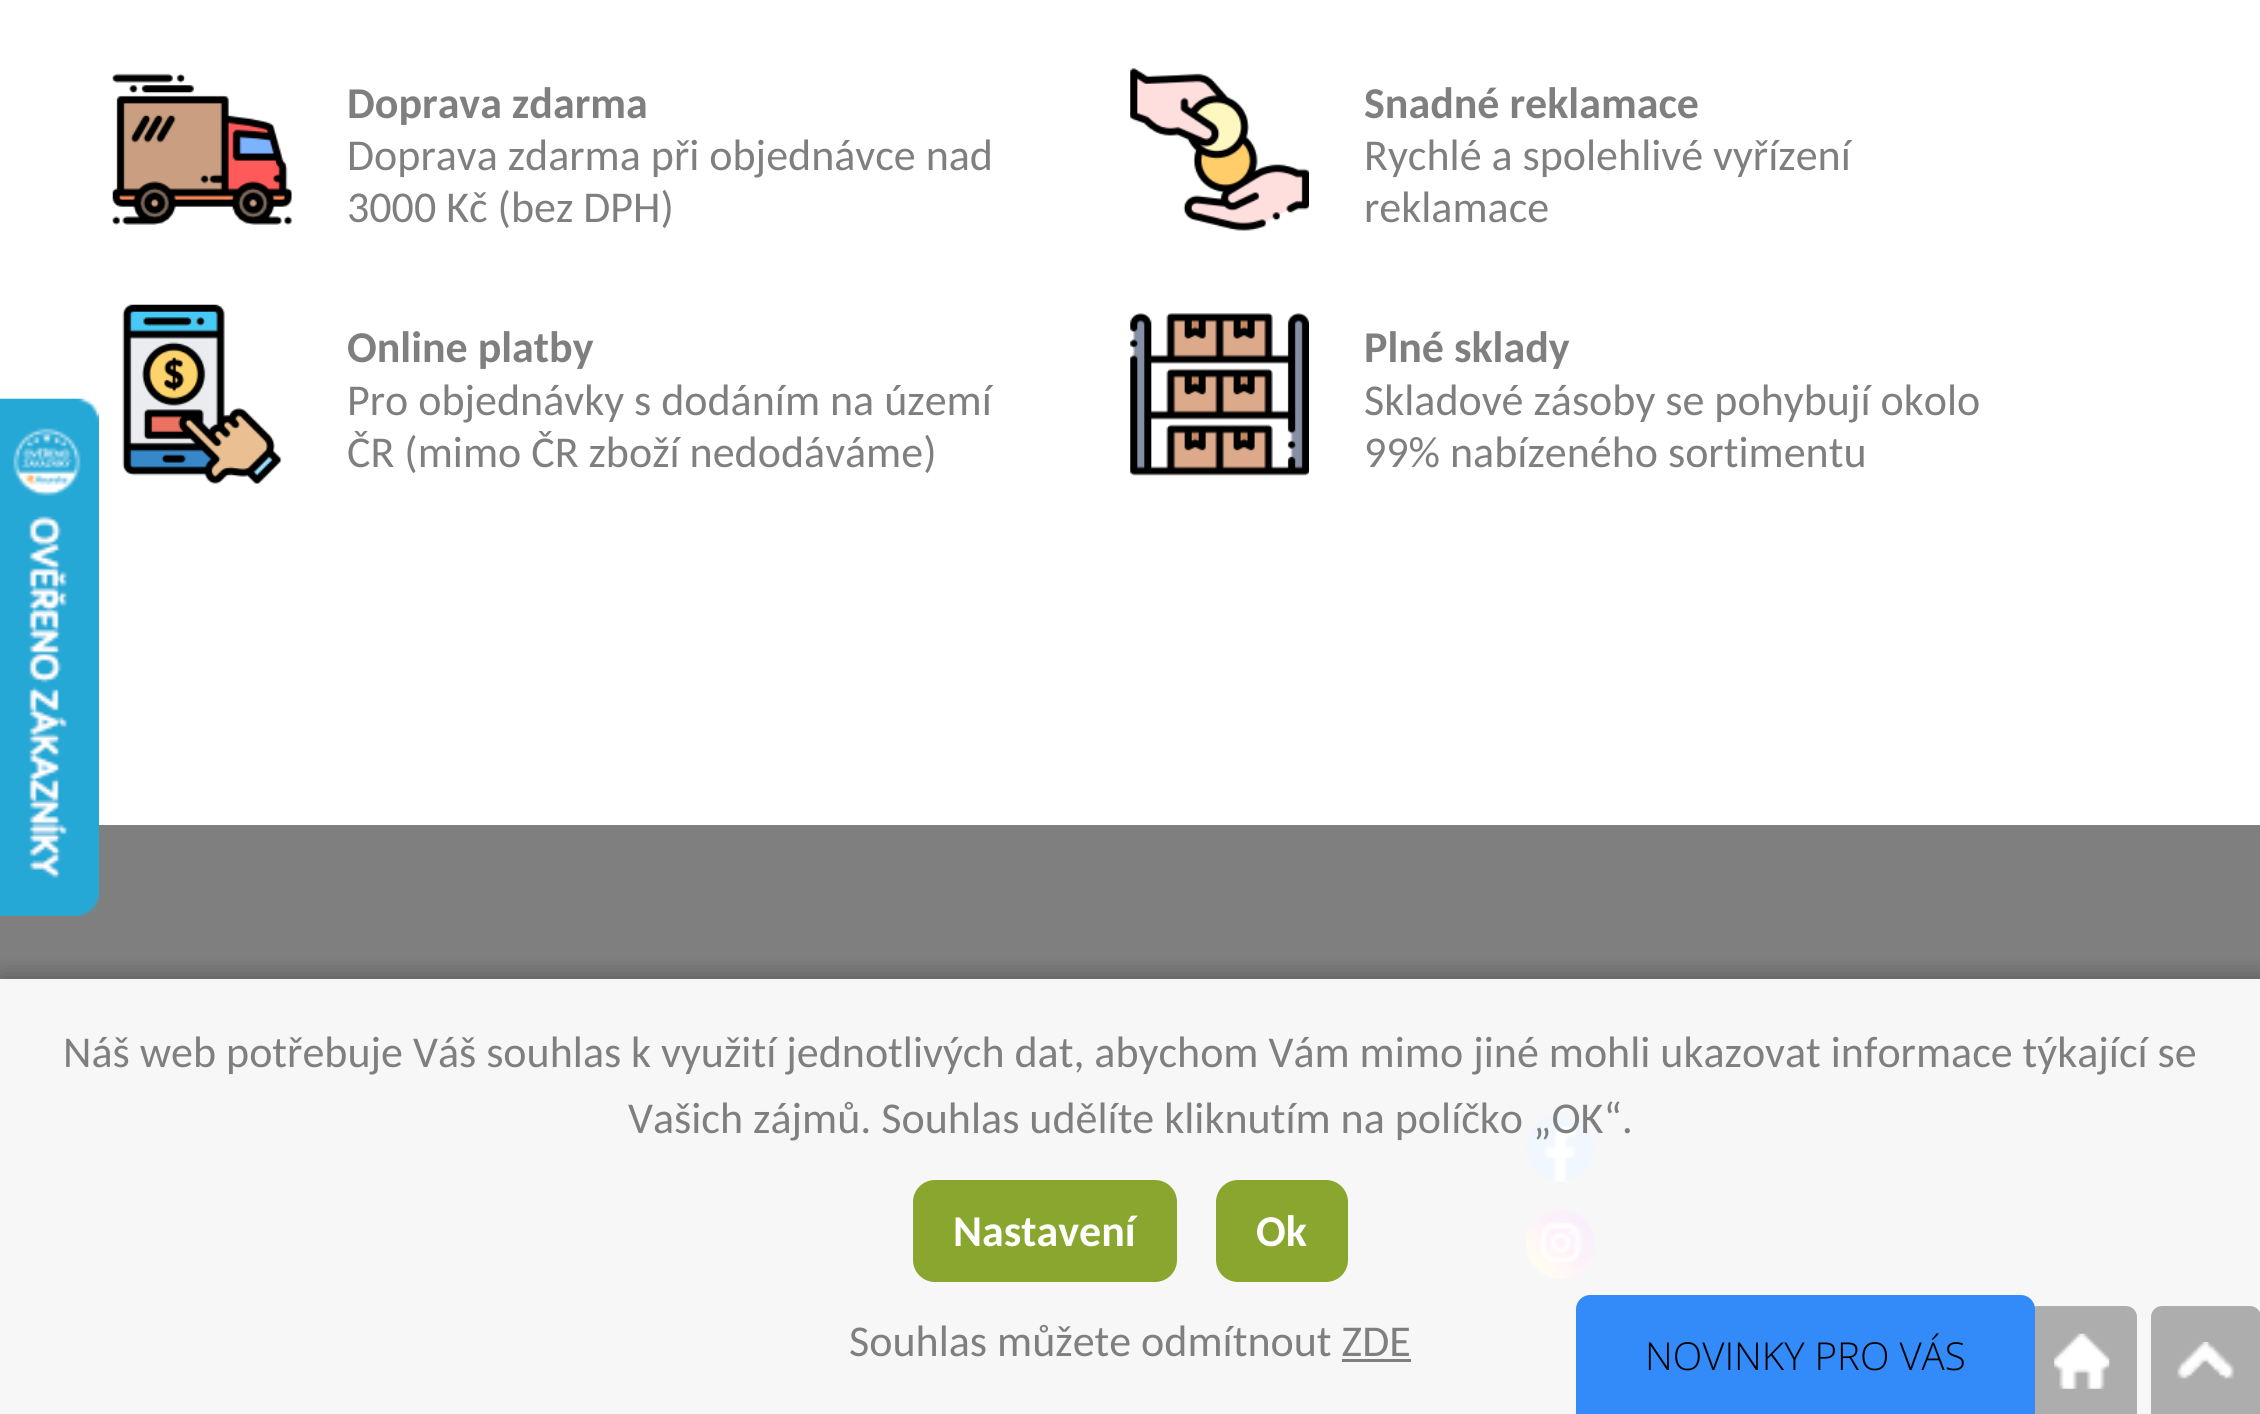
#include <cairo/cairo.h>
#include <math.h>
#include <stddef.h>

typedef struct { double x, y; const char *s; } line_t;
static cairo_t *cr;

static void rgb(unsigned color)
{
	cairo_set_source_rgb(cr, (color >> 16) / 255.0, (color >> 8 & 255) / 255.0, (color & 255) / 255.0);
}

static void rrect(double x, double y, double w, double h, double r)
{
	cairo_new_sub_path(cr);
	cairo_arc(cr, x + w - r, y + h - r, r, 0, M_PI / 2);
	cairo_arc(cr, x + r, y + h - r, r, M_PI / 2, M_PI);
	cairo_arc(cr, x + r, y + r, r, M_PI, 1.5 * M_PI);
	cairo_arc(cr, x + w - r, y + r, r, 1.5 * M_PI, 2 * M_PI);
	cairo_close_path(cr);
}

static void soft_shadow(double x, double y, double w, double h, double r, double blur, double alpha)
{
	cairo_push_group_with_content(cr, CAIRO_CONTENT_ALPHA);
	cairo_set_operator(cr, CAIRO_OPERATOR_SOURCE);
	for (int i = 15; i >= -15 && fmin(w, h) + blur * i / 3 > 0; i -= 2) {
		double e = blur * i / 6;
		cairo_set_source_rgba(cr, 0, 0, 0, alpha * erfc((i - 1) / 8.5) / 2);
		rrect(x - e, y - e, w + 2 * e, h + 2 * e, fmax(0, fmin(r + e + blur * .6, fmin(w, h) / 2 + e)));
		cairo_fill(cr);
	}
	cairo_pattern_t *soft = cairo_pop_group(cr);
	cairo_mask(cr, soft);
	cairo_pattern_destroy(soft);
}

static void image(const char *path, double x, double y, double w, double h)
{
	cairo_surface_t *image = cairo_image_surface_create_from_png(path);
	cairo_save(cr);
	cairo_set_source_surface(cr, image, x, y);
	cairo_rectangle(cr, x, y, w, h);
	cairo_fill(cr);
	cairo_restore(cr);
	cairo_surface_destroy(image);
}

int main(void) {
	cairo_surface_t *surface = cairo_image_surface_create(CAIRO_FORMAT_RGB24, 2260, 1414);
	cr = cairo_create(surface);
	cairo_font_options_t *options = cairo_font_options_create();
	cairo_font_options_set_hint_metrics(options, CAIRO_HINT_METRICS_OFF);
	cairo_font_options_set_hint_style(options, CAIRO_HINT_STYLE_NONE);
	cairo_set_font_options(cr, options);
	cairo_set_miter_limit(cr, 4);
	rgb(0xffffff);
	cairo_paint(cr);
	image("img/1.png", 112, 73, 180, 152);
	image("img/2.png", 1130, 68, 179, 163);
	image("img/3.png", 122, 304, 160, 180);
	image("img/4.png", 1130, 313, 179, 163);
	rgb(0x7f7f7f);
	cairo_rectangle(cr, 0, 825, 2260, 589);
	cairo_fill(cr);
	image("img/5.png", 1526, 1113, 69, 69);
	image("img/6.png", 1526, 1209, 69, 70);
	image("img/7.png", 0, 398, 99, 518);
	cairo_save(cr);
	cairo_rectangle(cr, 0, 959, 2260, 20);
	cairo_clip(cr);
	rgb(0x000000);
	soft_shadow(0, 974, 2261, 437, 0, 11, 0.25);
	cairo_restore(cr);
	cairo_set_source_rgba(cr, 1, 1, 1, 0.94);
	cairo_rectangle(cr, 0, 979, 2260, 435);
	cairo_fill(cr);
	rgb(0x89a62e);
	rrect(913, 1180, 264, 102, 22);
	cairo_fill(cr);
	rrect(1216, 1180, 132, 102, 22);
	cairo_fill(cr);
	rgb(0x7f7f7f);
	cairo_rectangle(cr, 1342, 1359, 69, 3);
	cairo_fill(cr);
	rgb(0xadadad);
	cairo_new_path(cr);
	cairo_move_to(cr, 2038, 1306);
	cairo_line_to(cr, 2126, 1306);
	cairo_curve_to(cr, 2132, 1306, 2137, 1311, 2137, 1317);
	cairo_line_to(cr, 2137, 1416);
	cairo_line_to(cr, 2027, 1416);
	cairo_line_to(cr, 2027, 1317);
	cairo_curve_to(cr, 2027, 1311, 2032, 1306, 2038, 1306);
	cairo_close_path(cr);
	cairo_fill(cr);
	rgb(0x328bf8);
	cairo_new_path(cr);
	cairo_move_to(cr, 1590, 1295);
	cairo_line_to(cr, 2021, 1295);
	cairo_curve_to(cr, 2028.5, 1295, 2035, 1301.5, 2035, 1309);
	cairo_line_to(cr, 2035, 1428);
	cairo_line_to(cr, 1576, 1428);
	cairo_line_to(cr, 1576, 1309);
	cairo_curve_to(cr, 1576, 1301.5, 1582.5, 1295, 1590, 1295);
	cairo_close_path(cr);
	cairo_fill(cr);
	image("img/8.png", 2054, 1333, 56, 56);
	rgb(0xadadad);
	cairo_new_path(cr);
	cairo_move_to(cr, 2162, 1306);
	cairo_line_to(cr, 2250, 1306);
	cairo_curve_to(cr, 2256, 1306, 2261, 1311, 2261, 1317);
	cairo_line_to(cr, 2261, 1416);
	cairo_line_to(cr, 2151, 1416);
	cairo_line_to(cr, 2151, 1317);
	cairo_curve_to(cr, 2151, 1311, 2156, 1306, 2162, 1306);
	cairo_close_path(cr);
	cairo_fill(cr);
	image("img/9.png", 2177, 1342, 57, 37);
	cairo_select_font_face(cr, "Carlito", CAIRO_FONT_SLANT_NORMAL, CAIRO_FONT_WEIGHT_BOLD);
	cairo_set_font_size(cr, 44);
	rgb(0x7f7f7f);
	cairo_move_to(cr, 347, 118);
	cairo_show_text(cr, "Doprava zdarma");
	cairo_select_font_face(cr, "Carlito", CAIRO_FONT_SLANT_NORMAL, CAIRO_FONT_WEIGHT_NORMAL);
	cairo_move_to(cr, 347, 170);
	cairo_show_text(cr, "Doprava zdarma při objednávce nad");
	cairo_move_to(cr, 347, 222);
	cairo_show_text(cr, "3000 Kč (bez DPH)");
	cairo_select_font_face(cr, "Carlito", CAIRO_FONT_SLANT_NORMAL, CAIRO_FONT_WEIGHT_BOLD);
	cairo_move_to(cr, 1364, 118);
	cairo_show_text(cr, "Snadné reklamace");
	cairo_select_font_face(cr, "Carlito", CAIRO_FONT_SLANT_NORMAL, CAIRO_FONT_WEIGHT_NORMAL);
	cairo_move_to(cr, 1364, 170);
	cairo_show_text(cr, "Rychlé a spolehlivé vyřízení");
	cairo_move_to(cr, 1364, 222);
	cairo_show_text(cr, "reklamace");
	cairo_select_font_face(cr, "Carlito", CAIRO_FONT_SLANT_NORMAL, CAIRO_FONT_WEIGHT_BOLD);
	cairo_move_to(cr, 347, 362);
	cairo_show_text(cr, "Online platby");
	cairo_select_font_face(cr, "Carlito", CAIRO_FONT_SLANT_NORMAL, CAIRO_FONT_WEIGHT_NORMAL);
	cairo_move_to(cr, 347, 415);
	cairo_show_text(cr, "Pro objednávky s dodáním na území");
	cairo_move_to(cr, 347, 467);
	cairo_show_text(cr, "ČR (mimo ČR zboží nedodáváme)");
	cairo_select_font_face(cr, "Carlito", CAIRO_FONT_SLANT_NORMAL, CAIRO_FONT_WEIGHT_BOLD);
	cairo_move_to(cr, 1364, 362);
	cairo_show_text(cr, "Plné sklady");
	cairo_select_font_face(cr, "Carlito", CAIRO_FONT_SLANT_NORMAL, CAIRO_FONT_WEIGHT_NORMAL);
	{
		static const line_t items[] = {
			{1364, 415, "Skladové zásoby se pohybují okolo"},
			{1364, 467, "99% nabízeného sortimentu"},
			{63, 1067, "Náš web potřebuje Váš souhlas k využití jednotlivých dat, abychom Vám mimo jiné mohli ukazovat informace týkající se"},
			{628, 1133, "Vašich zájmů. Souhlas udělíte kliknutím na políčko „OK“."},
		};
		for (size_t i = 0; i < sizeof items / sizeof *items; i++) {
			cairo_move_to(cr, items[i].x, items[i].y);
			cairo_show_text(cr, items[i].s);
		}
	}
	cairo_select_font_face(cr, "Carlito", CAIRO_FONT_SLANT_NORMAL, CAIRO_FONT_WEIGHT_BOLD);
	rgb(0xffffff);
	cairo_move_to(cr, 953, 1246);
	cairo_show_text(cr, "Nastavení");
	cairo_move_to(cr, 1256, 1246);
	cairo_show_text(cr, "Ok");
	cairo_select_font_face(cr, "Carlito", CAIRO_FONT_SLANT_NORMAL, CAIRO_FONT_WEIGHT_NORMAL);
	rgb(0x7f7f7f);
	cairo_move_to(cr, 849, 1356);
	cairo_show_text(cr, "Souhlas můžete odmítnout ZDE");
	cairo_select_font_face(cr, "Open Sans Light", CAIRO_FONT_SLANT_NORMAL, CAIRO_FONT_WEIGHT_NORMAL);
	cairo_set_font_size(cr, 38.5);
	rgb(0x000000);
	cairo_move_to(cr, 1645, 1370);
	cairo_show_text(cr, "NOVINKY PRO VÁS");
	cairo_surface_write_to_png(surface, "page.png");
	cairo_font_options_destroy(options);
	cairo_destroy(cr);
	cairo_surface_destroy(surface);
	return 0;
}
